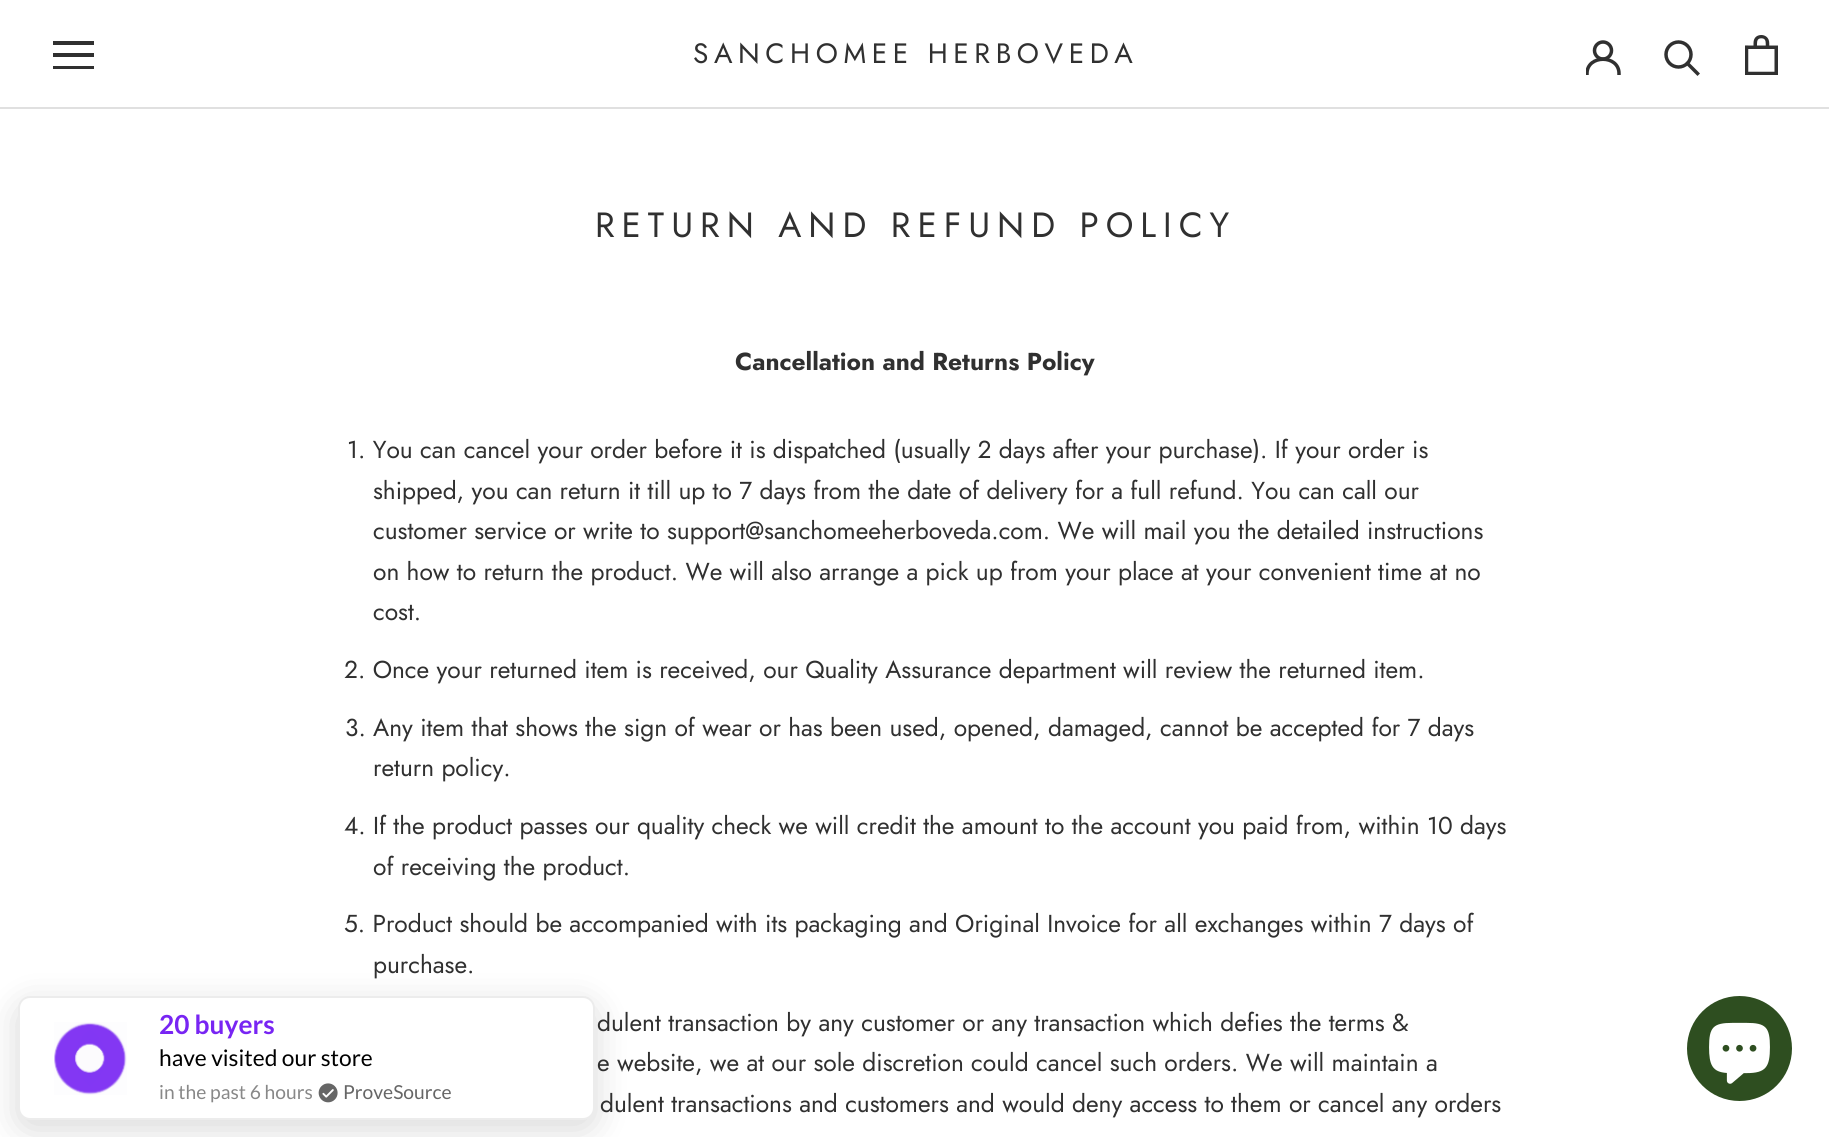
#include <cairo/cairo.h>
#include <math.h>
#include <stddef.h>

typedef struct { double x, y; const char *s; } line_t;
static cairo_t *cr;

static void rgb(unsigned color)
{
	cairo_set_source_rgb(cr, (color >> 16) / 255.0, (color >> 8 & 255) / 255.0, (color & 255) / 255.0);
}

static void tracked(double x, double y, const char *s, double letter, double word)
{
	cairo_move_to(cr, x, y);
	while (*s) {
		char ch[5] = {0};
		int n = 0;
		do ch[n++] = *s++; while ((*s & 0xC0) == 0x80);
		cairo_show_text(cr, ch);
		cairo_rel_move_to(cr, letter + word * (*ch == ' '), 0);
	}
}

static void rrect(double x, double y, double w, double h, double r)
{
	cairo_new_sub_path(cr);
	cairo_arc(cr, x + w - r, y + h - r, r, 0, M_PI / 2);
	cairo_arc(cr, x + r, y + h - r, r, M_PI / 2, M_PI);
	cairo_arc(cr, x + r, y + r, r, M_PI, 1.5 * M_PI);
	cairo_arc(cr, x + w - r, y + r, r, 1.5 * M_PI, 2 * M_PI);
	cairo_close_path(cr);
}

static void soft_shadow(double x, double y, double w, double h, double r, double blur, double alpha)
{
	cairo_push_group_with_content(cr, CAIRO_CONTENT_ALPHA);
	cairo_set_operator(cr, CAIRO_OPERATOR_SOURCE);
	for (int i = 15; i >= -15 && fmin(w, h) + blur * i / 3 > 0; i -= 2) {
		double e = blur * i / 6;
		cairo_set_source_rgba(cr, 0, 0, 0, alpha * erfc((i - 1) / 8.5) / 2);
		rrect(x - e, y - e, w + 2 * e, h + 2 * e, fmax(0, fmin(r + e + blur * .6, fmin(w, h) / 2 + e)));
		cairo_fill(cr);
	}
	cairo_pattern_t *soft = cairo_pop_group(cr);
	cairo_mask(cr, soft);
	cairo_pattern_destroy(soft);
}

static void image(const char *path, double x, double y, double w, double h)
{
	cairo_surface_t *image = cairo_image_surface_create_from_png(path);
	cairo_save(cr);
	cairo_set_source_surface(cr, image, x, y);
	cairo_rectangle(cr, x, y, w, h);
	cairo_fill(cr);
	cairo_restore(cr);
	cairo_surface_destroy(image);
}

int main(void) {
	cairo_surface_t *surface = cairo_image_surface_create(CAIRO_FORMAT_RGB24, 1829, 1137);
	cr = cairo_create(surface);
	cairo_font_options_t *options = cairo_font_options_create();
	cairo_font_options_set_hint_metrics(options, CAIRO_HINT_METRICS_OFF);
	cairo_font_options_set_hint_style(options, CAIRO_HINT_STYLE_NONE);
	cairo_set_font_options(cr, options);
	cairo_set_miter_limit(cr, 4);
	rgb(0xffffff);
	cairo_paint(cr);
	rgb(0x000000);
	soft_shadow(18, 1005, 577, 124, 12, 17.5, 0.15);
	rgb(0xffffff);
	rrect(19, 997, 575, 122, 11);
	cairo_fill_preserve(cr);
	rgb(0xececec);
	cairo_stroke(cr);
	image("img/1.png", 54, 1022, 73, 73);
	image("img/2.png", 318, 1083, 20, 20);
	rgb(0xe0e0e0);
	cairo_rectangle(cr, 0, 107, 1829, 2);
	cairo_fill(cr);
	cairo_save(cr);
	cairo_rectangle(cr, 53, 40, 42, 30);
	cairo_clip(cr);
	rgb(0x303030);
	cairo_new_path(cr);
	cairo_move_to(cr, 52, 69);
	cairo_line_to(cr, 52, 66);
	cairo_line_to(cr, 94, 66);
	cairo_line_to(cr, 94, 69);
	cairo_close_path(cr);
	cairo_move_to(cr, 52, 53);
	cairo_line_to(cr, 94, 53);
	cairo_line_to(cr, 94, 57);
	cairo_line_to(cr, 52, 57);
	cairo_close_path(cr);
	cairo_move_to(cr, 52, 41);
	cairo_line_to(cr, 94, 41);
	cairo_line_to(cr, 94, 45);
	cairo_line_to(cr, 52, 45);
	cairo_close_path(cr);
	cairo_fill(cr);
	cairo_restore(cr);
	cairo_save(cr);
	cairo_rectangle(cr, 1586, 40, 35, 35);
	cairo_clip(cr);
	cairo_new_path(cr);
	cairo_move_to(cr, 1587, 73.5);
	cairo_curve_to(cr, 1587, 54.5, 1619, 54.5, 1619, 73.5);
	rgb(0x303030);
	cairo_set_line_width(cr, 3.5);
	cairo_set_line_cap(cr, CAIRO_LINE_CAP_SQUARE);
	cairo_stroke(cr);
	cairo_restore(cr);
	cairo_arc(cr, 1603, 50.5, 8.5, 0, 2 * M_PI);
	rgb(0x303030);
	cairo_set_line_width(cr, 3.5);
	cairo_stroke(cr);
	cairo_new_path(cr);
	cairo_move_to(cr, 1697.5, 73.5);
	cairo_line_to(cr, 1687.5, 63.5);
	cairo_set_line_cap(cr, CAIRO_LINE_CAP_SQUARE);
	cairo_stroke(cr);
	cairo_arc(cr, 1678.5, 54.5, 12.5, 0, 2 * M_PI);
	cairo_set_line_cap(cr, CAIRO_LINE_CAP_BUTT);
	cairo_stroke(cr);
	image("img/3.png", 1745, 35, 33, 40);
	rgb(0x2e4e20);
	cairo_arc(cr, 1739.5, 1048.5, 52.5, 0, 2 * M_PI);
	cairo_fill(cr);
	image("img/4.png", 1709, 1022, 61, 62);
	cairo_select_font_face(cr, "Lato", CAIRO_FONT_SLANT_NORMAL, CAIRO_FONT_WEIGHT_BOLD);
	cairo_set_font_size(cr, 26.25);
	rgb(0x7825f3);
	cairo_move_to(cr, 159, 1034);
	cairo_show_text(cr, "20 buyers");
	cairo_select_font_face(cr, "Lato", CAIRO_FONT_SLANT_NORMAL, CAIRO_FONT_WEIGHT_NORMAL);
	cairo_set_font_size(cr, 22.75);
	rgb(0x000000);
	cairo_move_to(cr, 159, 1066);
	cairo_show_text(cr, "have visited our store");
	cairo_set_font_size(cr, 19.25);
	rgb(0x888888);
	cairo_move_to(cr, 159, 1099);
	cairo_show_text(cr, "in the past 6 hours");
	rgb(0x666666);
	cairo_move_to(cr, 343, 1099);
	cairo_show_text(cr, "ProveSource");
	cairo_select_font_face(cr, "Jost", CAIRO_FONT_SLANT_NORMAL, CAIRO_FONT_WEIGHT_NORMAL);
	cairo_set_font_size(cr, 28);
	rgb(0x303030);
	tracked(693, 63, "SANCHOMEE HERBOVEDA", 5.6, 0);
	cairo_set_font_size(cr, 35);
	tracked(595, 237, "RETURN AND REFUND POLICY", 7, 0);
	cairo_select_font_face(cr, "Jost", CAIRO_FONT_SLANT_NORMAL, CAIRO_FONT_WEIGHT_BOLD);
	cairo_set_font_size(cr, 24.5);
	cairo_move_to(cr, 735, 370);
	cairo_show_text(cr, "Cancellation and Returns Policy");
	cairo_select_font_face(cr, "Jost", CAIRO_FONT_SLANT_NORMAL, CAIRO_FONT_WEIGHT_NORMAL);
	{
		static const line_t items[] = {
			{347, 458, "1. You can cancel your order before it is dispatched (usually 2 days after your purchase). If your order is"},
			{373, 499, "shipped, you can return it till up to 7 days from the date of delivery for a full refund. You can call our"},
			{373, 539, "customer service or write to support@sanchomeeherboveda.com. We will mail you the detailed instructions"},
			{373, 580, "on how to return the product. We will also arrange a pick up from your place at your convenient time at no"},
			{373, 620, "cost."},
			{344, 678, "2. Once your returned item is received, our Quality Assurance department will review the returned item."},
			{345, 736, "3. Any item that shows the sign of wear or has been used, opened, damaged, cannot be accepted for 7 days"},
			{373, 776, "return policy."},
			{344, 834, "4. If the product passes our quality check we will credit the amount to the account you paid from, within 10 days"},
			{373, 875, "of receiving the product."},
			{344, 932, "5. Product should be accompanied with its packaging and Original Invoice for all exchanges within 7 days of"},
			{373, 973, "purchase."},
			{597, 1031, "dulent transaction by any customer or any transaction which defies the terms &"},
			{597, 1071, "e website, we at our sole discretion could cancel such orders. We will maintain a"},
			{600, 1112, "dulent transactions and customers and would deny access to them or cancel any orders"},
		};
		for (size_t i = 0; i < sizeof items / sizeof *items; i++) {
			cairo_move_to(cr, items[i].x, items[i].y);
			cairo_show_text(cr, items[i].s);
		}
	}
	cairo_surface_write_to_png(surface, "page.png");
	cairo_font_options_destroy(options);
	cairo_destroy(cr);
	cairo_surface_destroy(surface);
	return 0;
}
